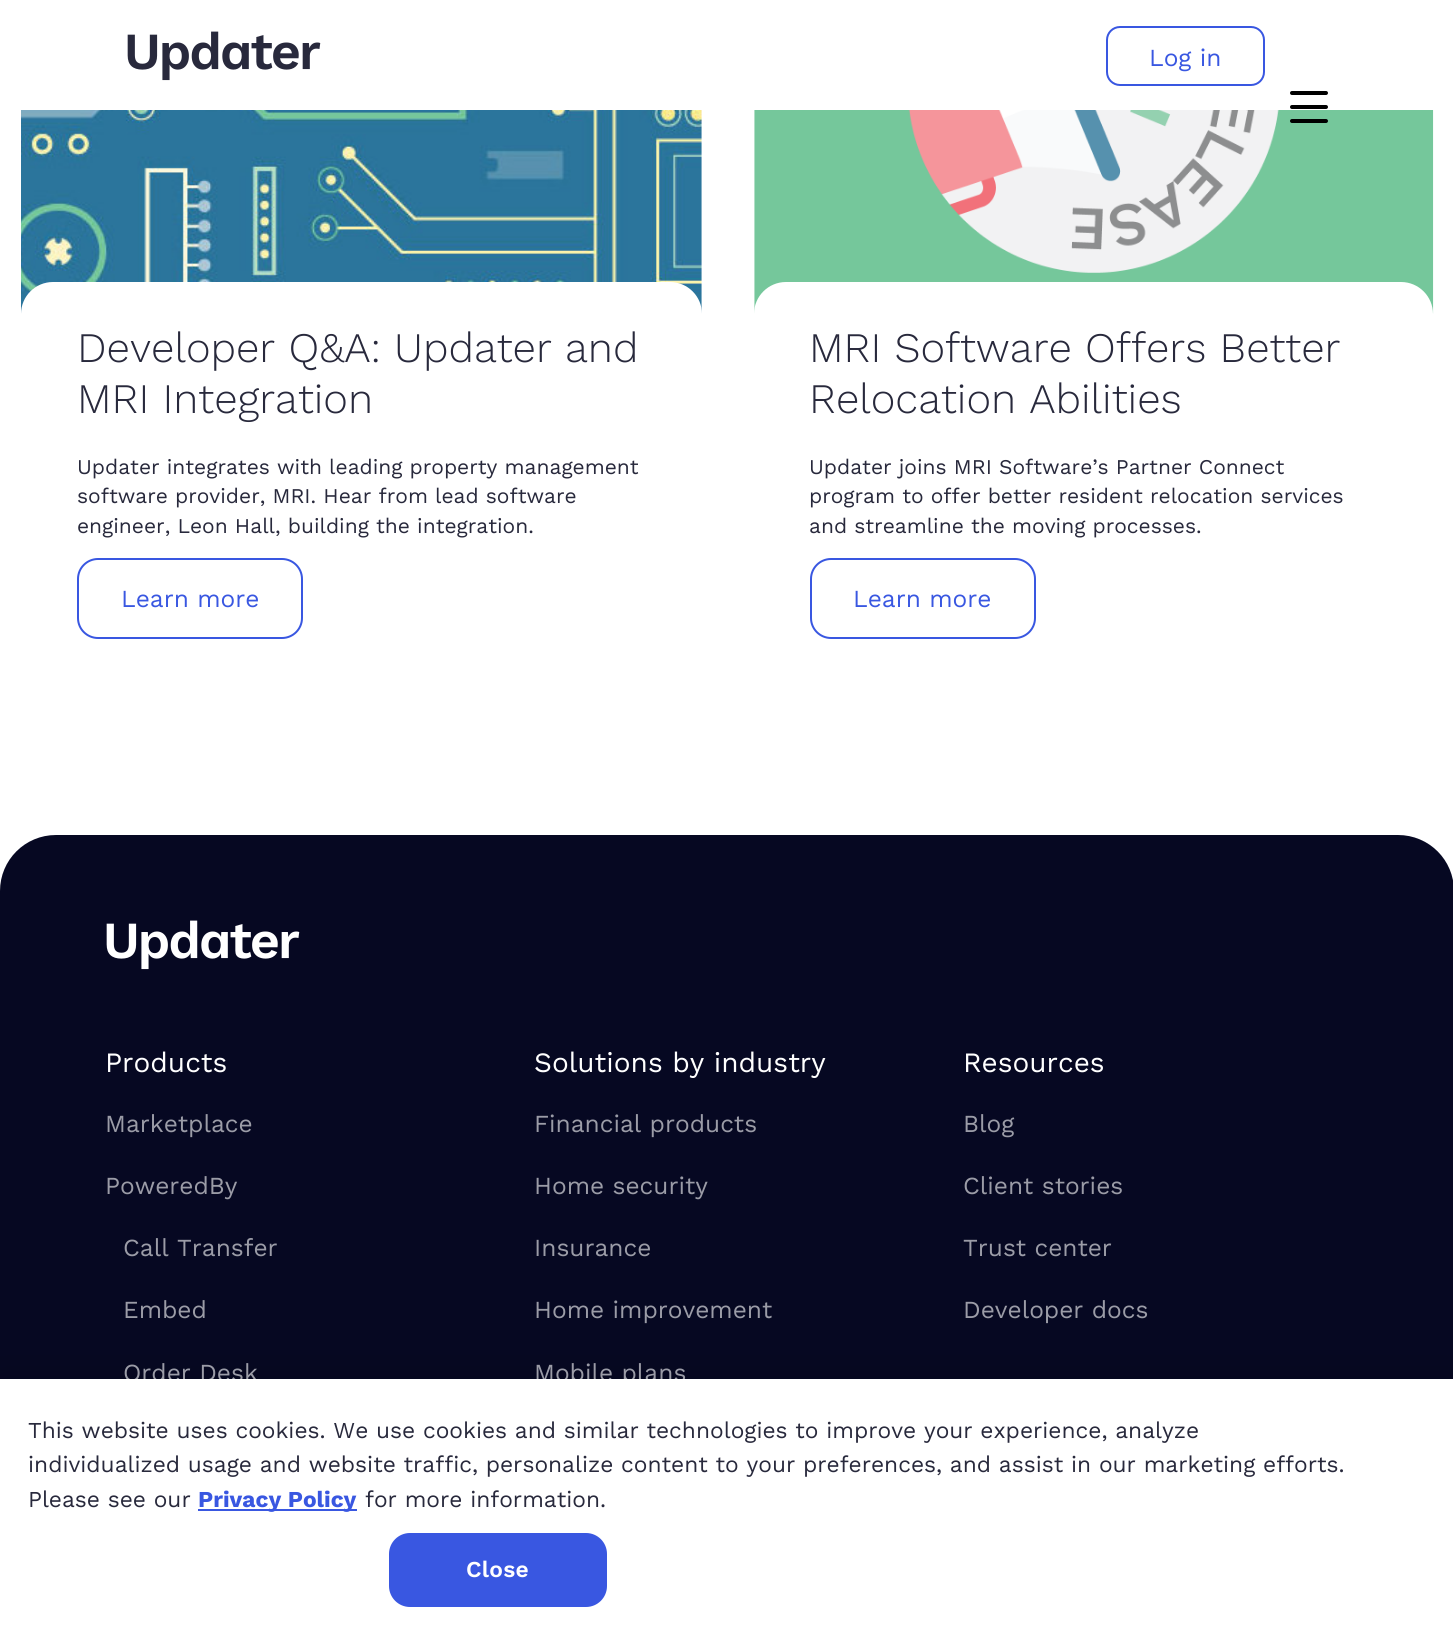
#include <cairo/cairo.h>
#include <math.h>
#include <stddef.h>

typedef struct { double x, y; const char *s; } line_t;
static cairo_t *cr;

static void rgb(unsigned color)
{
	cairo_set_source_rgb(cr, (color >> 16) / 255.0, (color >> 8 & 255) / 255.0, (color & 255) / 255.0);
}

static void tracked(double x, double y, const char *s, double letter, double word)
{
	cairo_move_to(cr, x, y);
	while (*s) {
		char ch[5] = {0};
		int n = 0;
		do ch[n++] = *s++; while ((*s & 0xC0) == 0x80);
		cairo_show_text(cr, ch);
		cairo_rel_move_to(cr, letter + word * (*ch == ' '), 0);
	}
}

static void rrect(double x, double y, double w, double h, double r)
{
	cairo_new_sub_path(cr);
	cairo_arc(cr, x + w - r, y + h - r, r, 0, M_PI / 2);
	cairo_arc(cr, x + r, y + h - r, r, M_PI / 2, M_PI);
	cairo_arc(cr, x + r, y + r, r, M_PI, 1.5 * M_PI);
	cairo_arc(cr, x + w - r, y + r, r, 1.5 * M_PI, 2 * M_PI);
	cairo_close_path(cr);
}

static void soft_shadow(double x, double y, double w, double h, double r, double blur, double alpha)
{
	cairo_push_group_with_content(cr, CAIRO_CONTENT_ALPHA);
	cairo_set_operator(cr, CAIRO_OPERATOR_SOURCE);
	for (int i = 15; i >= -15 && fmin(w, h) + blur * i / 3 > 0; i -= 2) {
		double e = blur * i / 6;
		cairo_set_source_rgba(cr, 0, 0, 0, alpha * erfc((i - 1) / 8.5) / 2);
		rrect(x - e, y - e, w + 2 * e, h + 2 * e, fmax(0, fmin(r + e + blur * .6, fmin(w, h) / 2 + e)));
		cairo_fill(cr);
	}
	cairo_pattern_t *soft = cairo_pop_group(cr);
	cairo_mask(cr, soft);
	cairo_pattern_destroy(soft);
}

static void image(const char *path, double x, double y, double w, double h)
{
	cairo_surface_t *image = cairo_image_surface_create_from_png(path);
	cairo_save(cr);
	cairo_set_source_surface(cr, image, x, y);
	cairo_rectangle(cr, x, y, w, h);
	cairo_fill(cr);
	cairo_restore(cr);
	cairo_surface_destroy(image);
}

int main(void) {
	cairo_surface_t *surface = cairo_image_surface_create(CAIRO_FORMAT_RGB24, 1453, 1633);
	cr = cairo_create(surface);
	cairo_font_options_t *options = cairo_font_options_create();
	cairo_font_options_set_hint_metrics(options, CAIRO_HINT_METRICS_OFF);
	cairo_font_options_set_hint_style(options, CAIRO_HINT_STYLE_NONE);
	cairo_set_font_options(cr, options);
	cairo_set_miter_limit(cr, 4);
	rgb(0xffffff);
	cairo_paint(cr);
	image("img/1.png", 127, 31, 194, 50);
	rrect(1107, 27, 157, 58, 13);
	rgb(0x3957e1);
	cairo_stroke(cr);
	image("img/3.png", 754, 110, 680, 204);
	rgb(0x000000);
	rrect(1290, 119, 38, 4, 2);
	cairo_fill(cr);
	rrect(1290, 91, 38, 4, 2);
	cairo_fill(cr);
	rrect(1290, 105, 38, 4, 2);
	cairo_fill(cr);
	image("img/2.png", 21, 110, 681, 204);
	rgb(0xffffff);
	rrect(21, 282, 681, 399, 32);
	cairo_fill(cr);
	rrect(78, 559, 224, 79, 20);
	rgb(0x3957e1);
	cairo_stroke(cr);
	rgb(0xffffff);
	rrect(754, 282, 679, 399, 32);
	cairo_fill(cr);
	rrect(811, 559, 224, 79, 20);
	rgb(0x3957e1);
	cairo_stroke(cr);
	rgb(0x060822);
	cairo_new_path(cr);
	cairo_move_to(cr, 56, 835);
	cairo_line_to(cr, 1398, 835);
	cairo_curve_to(cr, 1429, 835, 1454, 860, 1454, 891);
	cairo_line_to(cr, 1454, 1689);
	cairo_line_to(cr, 0, 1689);
	cairo_line_to(cr, 0, 891);
	cairo_curve_to(cr, 0, 860, 25, 835, 56, 835);
	cairo_close_path(cr);
	cairo_fill(cr);
	image("img/4.png", 106, 920, 194, 50);
	rgb(0x000000);
	soft_shadow(0, 1379, 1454, 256, 0, 16, 0.2);
	cairo_select_font_face(cr, "Work Sans", CAIRO_FONT_SLANT_NORMAL, CAIRO_FONT_WEIGHT_NORMAL);
	cairo_set_font_size(cr, 24.5);
	rgb(0x3957e1);
	cairo_move_to(cr, 1149, 66);
	cairo_show_text(cr, "Log in");
	cairo_select_font_face(cr, "Work Sans Light", CAIRO_FONT_SLANT_NORMAL, CAIRO_FONT_WEIGHT_NORMAL);
	cairo_set_font_size(cr, 42);
	rgb(0x28293c);
	cairo_move_to(cr, 77, 362);
	cairo_show_text(cr, "Developer Q&A: Updater and");
	cairo_move_to(cr, 77, 413);
	cairo_show_text(cr, "MRI Integration");
	cairo_select_font_face(cr, "Work Sans", CAIRO_FONT_SLANT_NORMAL, CAIRO_FONT_WEIGHT_NORMAL);
	cairo_set_font_size(cr, 21);
	{
		static const line_t items[] = {
			{77, 474, "Updater integrates with leading property management"},
			{77, 503, "software provider, MRI. Hear from lead software"},
			{77, 533, "engineer, Leon Hall, building the integration."},
		};
		for (size_t i = 0; i < sizeof items / sizeof *items; i++) {
			cairo_move_to(cr, items[i].x, items[i].y);
			cairo_show_text(cr, items[i].s);
		}
	}
	cairo_set_font_size(cr, 24.5);
	rgb(0x3957e1);
	cairo_move_to(cr, 121, 607);
	cairo_show_text(cr, "Learn more");
	cairo_select_font_face(cr, "Work Sans Light", CAIRO_FONT_SLANT_NORMAL, CAIRO_FONT_WEIGHT_NORMAL);
	cairo_set_font_size(cr, 42);
	rgb(0x28293c);
	cairo_move_to(cr, 809, 362);
	cairo_show_text(cr, "MRI Software Offers Better");
	cairo_move_to(cr, 809, 413);
	cairo_show_text(cr, "Relocation Abilities");
	cairo_select_font_face(cr, "Work Sans", CAIRO_FONT_SLANT_NORMAL, CAIRO_FONT_WEIGHT_NORMAL);
	cairo_set_font_size(cr, 21);
	{
		static const line_t items[] = {
			{809, 474, "Updater joins MRI Software’s Partner Connect"},
			{809, 503, "program to offer better resident relocation services"},
			{809, 533, "and streamline the moving processes."},
		};
		for (size_t i = 0; i < sizeof items / sizeof *items; i++) {
			cairo_move_to(cr, items[i].x, items[i].y);
			cairo_show_text(cr, items[i].s);
		}
	}
	cairo_set_font_size(cr, 24.5);
	rgb(0x3957e1);
	cairo_move_to(cr, 853, 607);
	cairo_show_text(cr, "Learn more");
	cairo_set_font_size(cr, 28);
	rgb(0xffffff);
	cairo_move_to(cr, 105, 1072);
	cairo_show_text(cr, "Products");
	cairo_set_font_size(cr, 24.5);
	rgb(0x9b9ca7);
	{
		static const line_t items[] = {
			{105, 1132, "Marketplace"},
			{105, 1194, "PoweredBy"},
			{123, 1256, "Call Transfer"},
			{123, 1318, "Embed"},
			{123, 1381, "Order Desk"},
		};
		for (size_t i = 0; i < sizeof items / sizeof *items; i++) {
			cairo_move_to(cr, items[i].x, items[i].y);
			cairo_show_text(cr, items[i].s);
		}
	}
	cairo_set_font_size(cr, 28);
	rgb(0xffffff);
	cairo_move_to(cr, 534, 1072);
	cairo_show_text(cr, "Solutions by industry");
	cairo_set_font_size(cr, 24.5);
	rgb(0x9b9ca7);
	{
		static const line_t items[] = {
			{534, 1132, "Financial products"},
			{534, 1194, "Home security"},
			{534, 1256, "Insurance"},
			{534, 1318, "Home improvement"},
			{534, 1381, "Mobile plans"},
		};
		for (size_t i = 0; i < sizeof items / sizeof *items; i++) {
			cairo_move_to(cr, items[i].x, items[i].y);
			cairo_show_text(cr, items[i].s);
		}
	}
	cairo_set_font_size(cr, 28);
	rgb(0xffffff);
	cairo_move_to(cr, 963, 1072);
	cairo_show_text(cr, "Resources");
	cairo_set_font_size(cr, 24.5);
	rgb(0x9b9ca7);
	{
		static const line_t items[] = {
			{963, 1132, "Blog"},
			{963, 1194, "Client stories"},
			{963, 1256, "Trust center"},
			{963, 1318, "Developer docs"},
		};
		for (size_t i = 0; i < sizeof items / sizeof *items; i++) {
			cairo_move_to(cr, items[i].x, items[i].y);
			cairo_show_text(cr, items[i].s);
		}
	}
	rgb(0xffffff);
	cairo_rectangle(cr, 0, 1379, 1453, 254);
	cairo_fill(cr);
	cairo_set_font_size(cr, 22.75);
	rgb(0x28293c);
	{
		static const line_t items[] = {
			{28, 1438, "This website uses cookies. We use cookies and similar technologies to improve your experience, analyze"},
			{28, 1472, "individualized usage and website traffic, personalize content to your preferences, and assist in our marketing efforts."},
			{28, 1507, "Please see our"},
		};
		for (size_t i = 0; i < sizeof items / sizeof *items; i++) {
			cairo_move_to(cr, items[i].x, items[i].y);
			cairo_show_text(cr, items[i].s);
		}
	}
	rgb(0x3957e1);
	cairo_rectangle(cr, 198, 1509, 159, 2);
	cairo_fill(cr);
	cairo_select_font_face(cr, "Work Sans", CAIRO_FONT_SLANT_NORMAL, CAIRO_FONT_WEIGHT_BOLD);
	cairo_move_to(cr, 198, 1507);
	cairo_show_text(cr, "Privacy Policy");
	cairo_select_font_face(cr, "Work Sans", CAIRO_FONT_SLANT_NORMAL, CAIRO_FONT_WEIGHT_NORMAL);
	rgb(0x28293c);
	cairo_move_to(cr, 365, 1507);
	cairo_show_text(cr, "for more information.");
	rgb(0x3957e1);
	rrect(390, 1534, 216, 72, 20);
	cairo_fill_preserve(cr);
	cairo_stroke(cr);
	cairo_select_font_face(cr, "Work Sans SemiBold", CAIRO_FONT_SLANT_NORMAL, CAIRO_FONT_WEIGHT_NORMAL);
	rgb(0xffffff);
	tracked(466, 1577, "Close", 0.25, 0);
	cairo_surface_write_to_png(surface, "page.png");
	cairo_font_options_destroy(options);
	cairo_destroy(cr);
	cairo_surface_destroy(surface);
	return 0;
}
